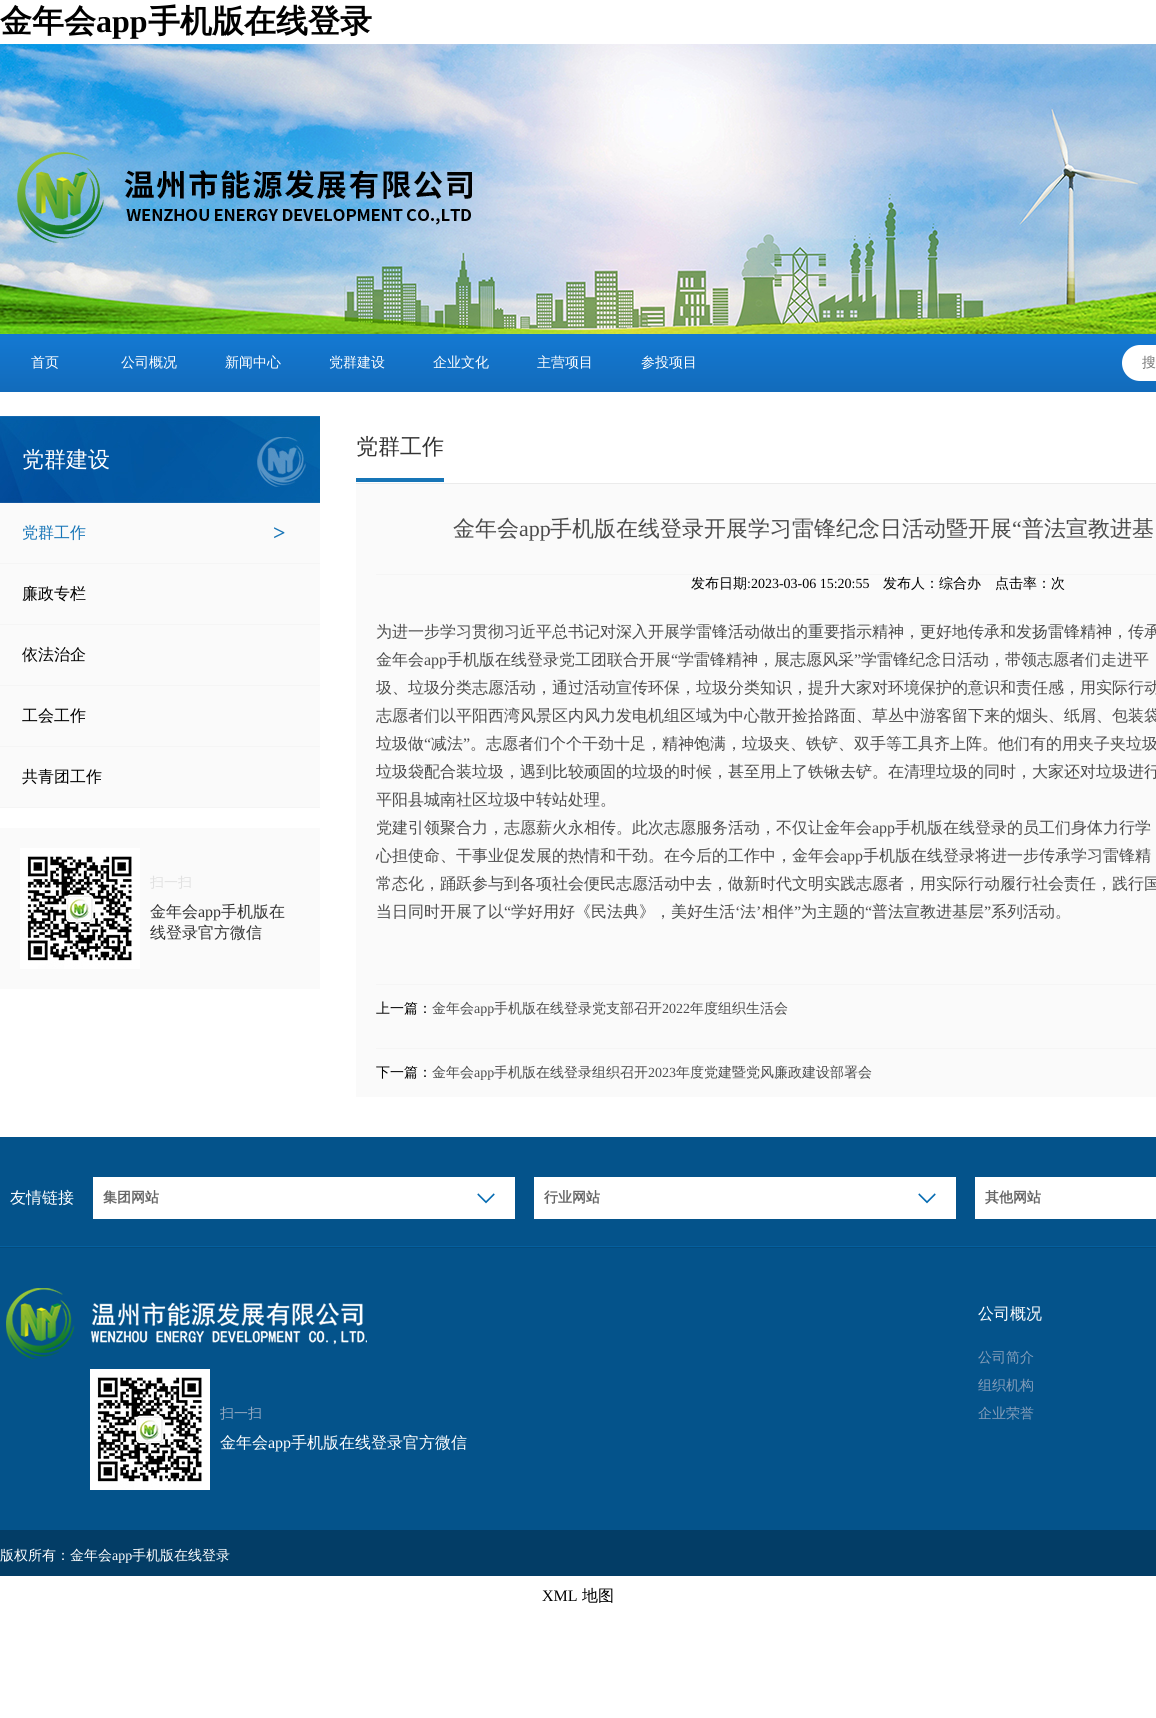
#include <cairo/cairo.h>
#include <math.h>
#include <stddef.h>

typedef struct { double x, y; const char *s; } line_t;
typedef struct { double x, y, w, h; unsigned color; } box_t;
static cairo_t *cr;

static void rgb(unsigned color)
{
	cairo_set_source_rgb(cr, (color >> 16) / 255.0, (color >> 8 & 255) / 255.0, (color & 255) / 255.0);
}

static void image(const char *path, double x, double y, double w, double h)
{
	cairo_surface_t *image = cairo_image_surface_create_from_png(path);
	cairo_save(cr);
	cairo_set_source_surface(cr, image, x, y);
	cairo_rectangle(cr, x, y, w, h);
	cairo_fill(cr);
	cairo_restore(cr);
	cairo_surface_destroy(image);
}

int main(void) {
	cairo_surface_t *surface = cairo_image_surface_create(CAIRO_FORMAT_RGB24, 1156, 1718);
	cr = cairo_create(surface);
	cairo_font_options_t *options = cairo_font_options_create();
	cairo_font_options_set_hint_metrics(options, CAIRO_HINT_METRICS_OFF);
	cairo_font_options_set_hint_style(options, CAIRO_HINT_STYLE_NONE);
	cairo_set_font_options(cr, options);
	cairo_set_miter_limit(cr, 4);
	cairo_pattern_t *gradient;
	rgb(0xffffff);
	cairo_paint(cr);
	image("img/1.png", 0, 44, 1156, 290);
	image("img/2.png", 17, 152, 455, 91);
	gradient = cairo_pattern_create_linear(700, 334, 700, 392);
	cairo_pattern_add_color_stop_rgba(gradient, 0, 0.078, 0.475, 0.827, 1);
	cairo_pattern_add_color_stop_rgba(gradient, 1, 0.071, 0.42, 0.733, 1);
	cairo_set_source(cr, gradient);
	cairo_pattern_destroy(gradient);
	cairo_rectangle(cr, 0, 334, 1156, 58);
	cairo_fill(cr);
	rgb(0xffffff);
	cairo_new_path(cr);
	cairo_move_to(cr, 1140, 345);
	cairo_line_to(cr, 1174, 345);
	cairo_line_to(cr, 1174, 381);
	cairo_line_to(cr, 1140, 381);
	cairo_curve_to(cr, 1130, 381, 1122, 373, 1122, 363);
	cairo_curve_to(cr, 1122, 353, 1130, 345, 1140, 345);
	cairo_close_path(cr);
	cairo_fill(cr);
	image("img/3.png", 0, 416, 320, 87);
	{
		static const box_t items[] = {
			{0, 503, 320, 60, 0xfafafa},
			{0, 563, 320, 1, 0xf5f5f5},
			{0, 564, 320, 60, 0xfafafa},
			{0, 624, 320, 1, 0xf5f5f5},
			{0, 625, 320, 60, 0xfafafa},
			{0, 685, 320, 1, 0xf5f5f5},
			{0, 686, 320, 60, 0xfafafa},
			{0, 746, 320, 1, 0xf5f5f5},
			{0, 747, 320, 60, 0xfafafa},
			{0, 807, 320, 1, 0xf5f5f5},
			{0, 828, 320, 161, 0xfafafa},
		};
		for (size_t i = 0; i < sizeof items / sizeof *items; i++) {
			rgb(items[i].color);
			cairo_rectangle(cr, items[i].x, items[i].y, items[i].w, items[i].h);
			cairo_fill(cr);
		}
	}
	image("img/4.png", 20, 848, 120, 121);
	{
		static const box_t items[] = {
			{356, 483, 800, 1, 0xebebeb},
			{356, 478, 88, 4, 0x1775b7},
			{356, 484, 800, 613, 0xfafafa},
			{376, 574, 780, 1, 0xf5f5f5},
			{376, 984, 780, 1, 0xf5f5f5},
			{376, 1048, 780, 1, 0xf5f5f5},
			{0, 1137, 1156, 393, 0x04538b},
			{0, 1246, 1156, 1, 0x0560a0},
			{93, 1177, 422, 42, 0xffffff},
		};
		for (size_t i = 0; i < sizeof items / sizeof *items; i++) {
			rgb(items[i].color);
			cairo_rectangle(cr, items[i].x, items[i].y, items[i].w, items[i].h);
			cairo_fill(cr);
		}
	}
	image("img/5.png", 477, 1193, 18, 11);
	cairo_rectangle(cr, 534, 1177, 422, 42);
	cairo_fill(cr);
	image("img/5.png", 918, 1193, 18, 11);
	cairo_rectangle(cr, 975, 1177, 181, 42);
	cairo_fill(cr);
	rgb(0x044a7b);
	cairo_rectangle(cr, 0, 1247, 1156, 1);
	cairo_fill(cr);
	image("img/6.png", 6, 1288, 361, 71);
	image("img/4.png", 90, 1369, 120, 121);
	rgb(0x033d66);
	cairo_rectangle(cr, 0, 1530, 1156, 46);
	cairo_fill(cr);
	cairo_select_font_face(cr, "WenQuanYi Zen Hei", CAIRO_FONT_SLANT_NORMAL, CAIRO_FONT_WEIGHT_BOLD);
	cairo_set_font_size(cr, 32);
	rgb(0x000000);
	cairo_move_to(cr, 0, 32);
	cairo_show_text(cr, "金年会");
	cairo_select_font_face(cr, "Liberation Serif", CAIRO_FONT_SLANT_NORMAL, CAIRO_FONT_WEIGHT_BOLD);
	cairo_move_to(cr, 96, 32);
	cairo_show_text(cr, "app");
	cairo_select_font_face(cr, "WenQuanYi Zen Hei", CAIRO_FONT_SLANT_NORMAL, CAIRO_FONT_WEIGHT_BOLD);
	cairo_move_to(cr, 148, 32);
	cairo_show_text(cr, "手机版在线登录");
	cairo_select_font_face(cr, "WenQuanYi Zen Hei Medium", CAIRO_FONT_SLANT_NORMAL, CAIRO_FONT_WEIGHT_NORMAL);
	cairo_set_font_size(cr, 14);
	rgb(0xffffff);
	{
		static const line_t items[] = {
			{31, 367, "首页"},
			{121, 367, "公司概况"},
			{225, 367, "新闻中心"},
			{329, 367, "党群建设"},
			{433, 367, "企业文化"},
			{537, 367, "主营项目"},
			{641, 367, "参投项目"},
		};
		for (size_t i = 0; i < sizeof items / sizeof *items; i++) {
			cairo_move_to(cr, items[i].x, items[i].y);
			cairo_show_text(cr, items[i].s);
		}
	}
	rgb(0x757575);
	cairo_move_to(cr, 1142, 367);
	cairo_show_text(cr, "搜");
	cairo_set_font_size(cr, 22);
	rgb(0xffffff);
	cairo_move_to(cr, 22, 467);
	cairo_show_text(cr, "党群建设");
	cairo_set_font_size(cr, 16);
	rgb(0x1775b7);
	cairo_move_to(cr, 22, 538);
	cairo_show_text(cr, "党群工作");
	cairo_select_font_face(cr, "Liberation Serif", CAIRO_FONT_SLANT_NORMAL, CAIRO_FONT_WEIGHT_BOLD);
	cairo_set_font_size(cr, 22);
	cairo_move_to(cr, 273, 540);
	cairo_show_text(cr, ">");
	cairo_select_font_face(cr, "WenQuanYi Zen Hei Medium", CAIRO_FONT_SLANT_NORMAL, CAIRO_FONT_WEIGHT_NORMAL);
	cairo_set_font_size(cr, 16);
	rgb(0x000000);
	{
		static const line_t items[] = {
			{22, 599, "廉政专栏"},
			{22, 660, "依法治企"},
			{22, 721, "工会工作"},
			{22, 782, "共青团工作"},
		};
		for (size_t i = 0; i < sizeof items / sizeof *items; i++) {
			cairo_move_to(cr, items[i].x, items[i].y);
			cairo_show_text(cr, items[i].s);
		}
	}
	cairo_set_font_size(cr, 14);
	rgb(0xe1e1e1);
	cairo_move_to(cr, 150, 887);
	cairo_show_text(cr, "扫一扫");
	cairo_set_font_size(cr, 16);
	rgb(0x333333);
	cairo_move_to(cr, 150, 917);
	cairo_show_text(cr, "金年会");
	cairo_select_font_face(cr, "Liberation Serif", CAIRO_FONT_SLANT_NORMAL, CAIRO_FONT_WEIGHT_NORMAL);
	cairo_move_to(cr, 198, 917);
	cairo_show_text(cr, "app");
	cairo_select_font_face(cr, "WenQuanYi Zen Hei Medium", CAIRO_FONT_SLANT_NORMAL, CAIRO_FONT_WEIGHT_NORMAL);
	cairo_move_to(cr, 221, 917);
	cairo_show_text(cr, "手机版在");
	cairo_move_to(cr, 150, 938);
	cairo_show_text(cr, "线登录官方微信");
	cairo_set_font_size(cr, 22);
	cairo_move_to(cr, 356, 454);
	cairo_show_text(cr, "党群工作");
	rgb(0x4c4c4c);
	cairo_move_to(cr, 453, 536);
	cairo_show_text(cr, "金年会");
	cairo_move_to(cr, 550, 536);
	cairo_show_text(cr, "手机版在线登录开展学习雷锋纪念日活动暨开展");
	cairo_select_font_face(cr, "Liberation Serif", CAIRO_FONT_SLANT_NORMAL, CAIRO_FONT_WEIGHT_NORMAL);
	cairo_move_to(cr, 1012, 536);
	cairo_show_text(cr, "“");
	cairo_select_font_face(cr, "WenQuanYi Zen Hei Medium", CAIRO_FONT_SLANT_NORMAL, CAIRO_FONT_WEIGHT_NORMAL);
	cairo_move_to(cr, 1022, 536);
	cairo_show_text(cr, "普法宣教进基");
	cairo_select_font_face(cr, "Liberation Serif", CAIRO_FONT_SLANT_NORMAL, CAIRO_FONT_WEIGHT_NORMAL);
	cairo_move_to(cr, 519, 536);
	cairo_show_text(cr, "app");
	cairo_select_font_face(cr, "WenQuanYi Zen Hei Medium", CAIRO_FONT_SLANT_NORMAL, CAIRO_FONT_WEIGHT_NORMAL);
	cairo_set_font_size(cr, 14);
	rgb(0x000000);
	cairo_move_to(cr, 691, 588);
	cairo_show_text(cr, "发布日期");
	cairo_select_font_face(cr, "Liberation Serif", CAIRO_FONT_SLANT_NORMAL, CAIRO_FONT_WEIGHT_NORMAL);
	cairo_move_to(cr, 747, 588);
	cairo_show_text(cr, ":2023-03-06 15:20:55");
	cairo_select_font_face(cr, "WenQuanYi Zen Hei Medium", CAIRO_FONT_SLANT_NORMAL, CAIRO_FONT_WEIGHT_NORMAL);
	cairo_move_to(cr, 883, 588);
	cairo_show_text(cr, "发布人：综合办");
	cairo_move_to(cr, 995, 588);
	cairo_show_text(cr, "点击率：次");
	cairo_set_font_size(cr, 16);
	rgb(0x4c4c4c);
	{
		static const line_t items[] = {
			{376, 637, "为进一步学习贯彻习近平总书记对深入开展学雷锋活动做出的重要指示精神，更好地传承和发扬雷锋精神，传承"},
			{376, 665, "金年会"},
			{447, 665, "手机版在线登录党工团联合开展"},
		};
		for (size_t i = 0; i < sizeof items / sizeof *items; i++) {
			cairo_move_to(cr, items[i].x, items[i].y);
			cairo_show_text(cr, items[i].s);
		}
	}
	cairo_select_font_face(cr, "Liberation Serif", CAIRO_FONT_SLANT_NORMAL, CAIRO_FONT_WEIGHT_NORMAL);
	cairo_move_to(cr, 671, 665);
	cairo_show_text(cr, "“");
	cairo_select_font_face(cr, "WenQuanYi Zen Hei Medium", CAIRO_FONT_SLANT_NORMAL, CAIRO_FONT_WEIGHT_NORMAL);
	cairo_move_to(cr, 678, 665);
	cairo_show_text(cr, "学雷锋精神，展志愿风采");
	cairo_select_font_face(cr, "Liberation Serif", CAIRO_FONT_SLANT_NORMAL, CAIRO_FONT_WEIGHT_NORMAL);
	cairo_move_to(cr, 854, 665);
	cairo_show_text(cr, "”");
	cairo_select_font_face(cr, "WenQuanYi Zen Hei Medium", CAIRO_FONT_SLANT_NORMAL, CAIRO_FONT_WEIGHT_NORMAL);
	cairo_move_to(cr, 861, 665);
	cairo_show_text(cr, "学雷锋纪念日活动，带领志愿者们走进平");
	cairo_select_font_face(cr, "Liberation Serif", CAIRO_FONT_SLANT_NORMAL, CAIRO_FONT_WEIGHT_NORMAL);
	cairo_move_to(cr, 424, 665);
	cairo_show_text(cr, "app");
	cairo_select_font_face(cr, "WenQuanYi Zen Hei Medium", CAIRO_FONT_SLANT_NORMAL, CAIRO_FONT_WEIGHT_NORMAL);
	{
		static const line_t items[] = {
			{376, 693, "圾、垃圾分类志愿活动，通过活动宣传环保，垃圾分类知识，提升大家对环境保护的意识和责任感，用实际行动"},
			{376, 721, "志愿者们以平阳西湾风景区内风力发电机组区域为中心散开捡拾路面、草丛中游客留下来的烟头、纸屑、包装袋"},
			{376, 749, "垃圾做"},
		};
		for (size_t i = 0; i < sizeof items / sizeof *items; i++) {
			cairo_move_to(cr, items[i].x, items[i].y);
			cairo_show_text(cr, items[i].s);
		}
	}
	cairo_select_font_face(cr, "Liberation Serif", CAIRO_FONT_SLANT_NORMAL, CAIRO_FONT_WEIGHT_NORMAL);
	cairo_move_to(cr, 424, 749);
	cairo_show_text(cr, "“");
	cairo_select_font_face(cr, "WenQuanYi Zen Hei Medium", CAIRO_FONT_SLANT_NORMAL, CAIRO_FONT_WEIGHT_NORMAL);
	cairo_move_to(cr, 431, 749);
	cairo_show_text(cr, "减法");
	cairo_select_font_face(cr, "Liberation Serif", CAIRO_FONT_SLANT_NORMAL, CAIRO_FONT_WEIGHT_NORMAL);
	cairo_move_to(cr, 463, 749);
	cairo_show_text(cr, "”");
	cairo_select_font_face(cr, "WenQuanYi Zen Hei Medium", CAIRO_FONT_SLANT_NORMAL, CAIRO_FONT_WEIGHT_NORMAL);
	{
		static const line_t items[] = {
			{470, 749, "。志愿者们个个干劲十足，精神饱满，垃圾夹、铁铲、双手等工具齐上阵。他们有的用夹子夹垃圾"},
			{376, 777, "垃圾袋配合装垃圾，遇到比较顽固的垃圾的时候，甚至用上了铁锹去铲。在清理垃圾的同时，大家还对垃圾进行"},
			{376, 805, "平阳县城南社区垃圾中转站处理。"},
			{376, 833, "党建引领聚合力，志愿薪火永相传。此次志愿服务活动，不仅让金年会"},
		};
		for (size_t i = 0; i < sizeof items / sizeof *items; i++) {
			cairo_move_to(cr, items[i].x, items[i].y);
			cairo_show_text(cr, items[i].s);
		}
	}
	cairo_select_font_face(cr, "Liberation Serif", CAIRO_FONT_SLANT_NORMAL, CAIRO_FONT_WEIGHT_NORMAL);
	cairo_move_to(cr, 872, 833);
	cairo_show_text(cr, "app");
	cairo_select_font_face(cr, "WenQuanYi Zen Hei Medium", CAIRO_FONT_SLANT_NORMAL, CAIRO_FONT_WEIGHT_NORMAL);
	cairo_move_to(cr, 895, 833);
	cairo_show_text(cr, "手机版在线登录的员工们身体力行学");
	cairo_move_to(cr, 376, 861);
	cairo_show_text(cr, "心担使命、干事业促发展的热情和干劲。在今后的工作中，金年会");
	cairo_select_font_face(cr, "Liberation Serif", CAIRO_FONT_SLANT_NORMAL, CAIRO_FONT_WEIGHT_NORMAL);
	cairo_move_to(cr, 840, 861);
	cairo_show_text(cr, "app");
	cairo_select_font_face(cr, "WenQuanYi Zen Hei Medium", CAIRO_FONT_SLANT_NORMAL, CAIRO_FONT_WEIGHT_NORMAL);
	{
		static const line_t items[] = {
			{863, 861, "手机版在线登录将进一步传承学习雷锋精"},
			{376, 889, "常态化，踊跃参与到各项社会便民志愿活动中去，做新时代文明实践志愿者，用实际行动履行社会责任，践行国"},
			{376, 917, "当日同时开展了以"},
		};
		for (size_t i = 0; i < sizeof items / sizeof *items; i++) {
			cairo_move_to(cr, items[i].x, items[i].y);
			cairo_show_text(cr, items[i].s);
		}
	}
	cairo_select_font_face(cr, "Liberation Serif", CAIRO_FONT_SLANT_NORMAL, CAIRO_FONT_WEIGHT_NORMAL);
	cairo_move_to(cr, 504, 917);
	cairo_show_text(cr, "“");
	cairo_select_font_face(cr, "WenQuanYi Zen Hei Medium", CAIRO_FONT_SLANT_NORMAL, CAIRO_FONT_WEIGHT_NORMAL);
	cairo_move_to(cr, 511, 917);
	cairo_show_text(cr, "学好用好《民法典》，美好生活");
	cairo_select_font_face(cr, "Liberation Serif", CAIRO_FONT_SLANT_NORMAL, CAIRO_FONT_WEIGHT_NORMAL);
	cairo_move_to(cr, 735, 917);
	cairo_show_text(cr, "‘");
	cairo_select_font_face(cr, "WenQuanYi Zen Hei Medium", CAIRO_FONT_SLANT_NORMAL, CAIRO_FONT_WEIGHT_NORMAL);
	cairo_move_to(cr, 740, 917);
	cairo_show_text(cr, "法");
	cairo_select_font_face(cr, "Liberation Serif", CAIRO_FONT_SLANT_NORMAL, CAIRO_FONT_WEIGHT_NORMAL);
	cairo_move_to(cr, 756, 917);
	cairo_show_text(cr, "’");
	cairo_select_font_face(cr, "WenQuanYi Zen Hei Medium", CAIRO_FONT_SLANT_NORMAL, CAIRO_FONT_WEIGHT_NORMAL);
	cairo_move_to(cr, 762, 917);
	cairo_show_text(cr, "相伴");
	cairo_select_font_face(cr, "Liberation Serif", CAIRO_FONT_SLANT_NORMAL, CAIRO_FONT_WEIGHT_NORMAL);
	cairo_move_to(cr, 794, 917);
	cairo_show_text(cr, "”");
	cairo_select_font_face(cr, "WenQuanYi Zen Hei Medium", CAIRO_FONT_SLANT_NORMAL, CAIRO_FONT_WEIGHT_NORMAL);
	cairo_move_to(cr, 801, 917);
	cairo_show_text(cr, "为主题的");
	cairo_select_font_face(cr, "Liberation Serif", CAIRO_FONT_SLANT_NORMAL, CAIRO_FONT_WEIGHT_NORMAL);
	cairo_move_to(cr, 865, 917);
	cairo_show_text(cr, "“");
	cairo_select_font_face(cr, "WenQuanYi Zen Hei Medium", CAIRO_FONT_SLANT_NORMAL, CAIRO_FONT_WEIGHT_NORMAL);
	cairo_move_to(cr, 872, 917);
	cairo_show_text(cr, "普法宣教进基层");
	cairo_select_font_face(cr, "Liberation Serif", CAIRO_FONT_SLANT_NORMAL, CAIRO_FONT_WEIGHT_NORMAL);
	cairo_move_to(cr, 984, 917);
	cairo_show_text(cr, "”");
	cairo_select_font_face(cr, "WenQuanYi Zen Hei Medium", CAIRO_FONT_SLANT_NORMAL, CAIRO_FONT_WEIGHT_NORMAL);
	cairo_move_to(cr, 991, 917);
	cairo_show_text(cr, "系列活动。");
	cairo_set_font_size(cr, 14);
	rgb(0x000000);
	cairo_move_to(cr, 376, 1013);
	cairo_show_text(cr, "上一篇：");
	rgb(0x4c4c4c);
	cairo_move_to(cr, 432, 1013);
	cairo_show_text(cr, "金年会");
	cairo_select_font_face(cr, "Liberation Serif", CAIRO_FONT_SLANT_NORMAL, CAIRO_FONT_WEIGHT_NORMAL);
	cairo_move_to(cr, 474, 1013);
	cairo_show_text(cr, "app");
	cairo_select_font_face(cr, "WenQuanYi Zen Hei Medium", CAIRO_FONT_SLANT_NORMAL, CAIRO_FONT_WEIGHT_NORMAL);
	cairo_move_to(cr, 494, 1013);
	cairo_show_text(cr, "手机版在线登录党支部召开");
	cairo_select_font_face(cr, "Liberation Serif", CAIRO_FONT_SLANT_NORMAL, CAIRO_FONT_WEIGHT_NORMAL);
	cairo_move_to(cr, 662, 1013);
	cairo_show_text(cr, "2022");
	cairo_select_font_face(cr, "WenQuanYi Zen Hei Medium", CAIRO_FONT_SLANT_NORMAL, CAIRO_FONT_WEIGHT_NORMAL);
	cairo_move_to(cr, 690, 1013);
	cairo_show_text(cr, "年度组织生活会");
	rgb(0x000000);
	cairo_move_to(cr, 376, 1077);
	cairo_show_text(cr, "下一篇：");
	rgb(0x4c4c4c);
	cairo_move_to(cr, 432, 1077);
	cairo_show_text(cr, "金年会");
	cairo_select_font_face(cr, "Liberation Serif", CAIRO_FONT_SLANT_NORMAL, CAIRO_FONT_WEIGHT_NORMAL);
	cairo_move_to(cr, 474, 1077);
	cairo_show_text(cr, "app");
	cairo_select_font_face(cr, "WenQuanYi Zen Hei Medium", CAIRO_FONT_SLANT_NORMAL, CAIRO_FONT_WEIGHT_NORMAL);
	cairo_move_to(cr, 494, 1077);
	cairo_show_text(cr, "手机版在线登录组织召开");
	cairo_select_font_face(cr, "Liberation Serif", CAIRO_FONT_SLANT_NORMAL, CAIRO_FONT_WEIGHT_NORMAL);
	cairo_move_to(cr, 648, 1077);
	cairo_show_text(cr, "2023");
	cairo_select_font_face(cr, "WenQuanYi Zen Hei Medium", CAIRO_FONT_SLANT_NORMAL, CAIRO_FONT_WEIGHT_NORMAL);
	cairo_move_to(cr, 676, 1077);
	cairo_show_text(cr, "年度党建暨党风廉政建设部署会");
	cairo_set_font_size(cr, 16);
	rgb(0xffffff);
	cairo_move_to(cr, 10, 1203);
	cairo_show_text(cr, "友情链接");
	cairo_select_font_face(cr, "WenQuanYi Zen Hei", CAIRO_FONT_SLANT_NORMAL, CAIRO_FONT_WEIGHT_BOLD);
	cairo_set_font_size(cr, 14);
	rgb(0x666666);
	{
		static const line_t items[] = {
			{103, 1202, "集团网站"},
			{544, 1202, "行业网站"},
			{985, 1202, "其他网站"},
		};
		for (size_t i = 0; i < sizeof items / sizeof *items; i++) {
			cairo_move_to(cr, items[i].x, items[i].y);
			cairo_show_text(cr, items[i].s);
		}
	}
	cairo_select_font_face(cr, "WenQuanYi Zen Hei Medium", CAIRO_FONT_SLANT_NORMAL, CAIRO_FONT_WEIGHT_NORMAL);
	cairo_set_font_size(cr, 16);
	rgb(0xffffff);
	cairo_move_to(cr, 978, 1319);
	cairo_show_text(cr, "公司概况");
	cairo_set_font_size(cr, 14);
	rgb(0x849db9);
	{
		static const line_t items[] = {
			{978, 1362, "公司简介"},
			{978, 1390, "组织机构"},
			{978, 1418, "企业荣誉"},
		};
		for (size_t i = 0; i < sizeof items / sizeof *items; i++) {
			cairo_move_to(cr, items[i].x, items[i].y);
			cairo_show_text(cr, items[i].s);
		}
	}
	rgb(0x91a7c0);
	cairo_move_to(cr, 220, 1418);
	cairo_show_text(cr, "扫一扫");
	cairo_set_font_size(cr, 16);
	rgb(0xffffff);
	cairo_move_to(cr, 220, 1448);
	cairo_show_text(cr, "金年会");
	cairo_select_font_face(cr, "Liberation Serif", CAIRO_FONT_SLANT_NORMAL, CAIRO_FONT_WEIGHT_NORMAL);
	cairo_move_to(cr, 268, 1448);
	cairo_show_text(cr, "app");
	cairo_select_font_face(cr, "WenQuanYi Zen Hei Medium", CAIRO_FONT_SLANT_NORMAL, CAIRO_FONT_WEIGHT_NORMAL);
	cairo_move_to(cr, 291, 1448);
	cairo_show_text(cr, "手机版在线登录官方微信");
	cairo_set_font_size(cr, 14);
	cairo_move_to(cr, 0, 1560);
	cairo_show_text(cr, "版权所有：金年会");
	cairo_select_font_face(cr, "Liberation Serif", CAIRO_FONT_SLANT_NORMAL, CAIRO_FONT_WEIGHT_NORMAL);
	cairo_move_to(cr, 112, 1560);
	cairo_show_text(cr, "app");
	cairo_select_font_face(cr, "WenQuanYi Zen Hei Medium", CAIRO_FONT_SLANT_NORMAL, CAIRO_FONT_WEIGHT_NORMAL);
	cairo_move_to(cr, 132, 1560);
	cairo_show_text(cr, "手机版在线登录");
	cairo_select_font_face(cr, "Liberation Serif", CAIRO_FONT_SLANT_NORMAL, CAIRO_FONT_WEIGHT_NORMAL);
	cairo_set_font_size(cr, 16);
	rgb(0x000000);
	cairo_move_to(cr, 542, 1601);
	cairo_show_text(cr, "XML");
	cairo_select_font_face(cr, "WenQuanYi Zen Hei Medium", CAIRO_FONT_SLANT_NORMAL, CAIRO_FONT_WEIGHT_NORMAL);
	cairo_move_to(cr, 582, 1601);
	cairo_show_text(cr, "地图");
	cairo_surface_write_to_png(surface, "page.png");
	cairo_font_options_destroy(options);
	cairo_destroy(cr);
	cairo_surface_destroy(surface);
	return 0;
}
